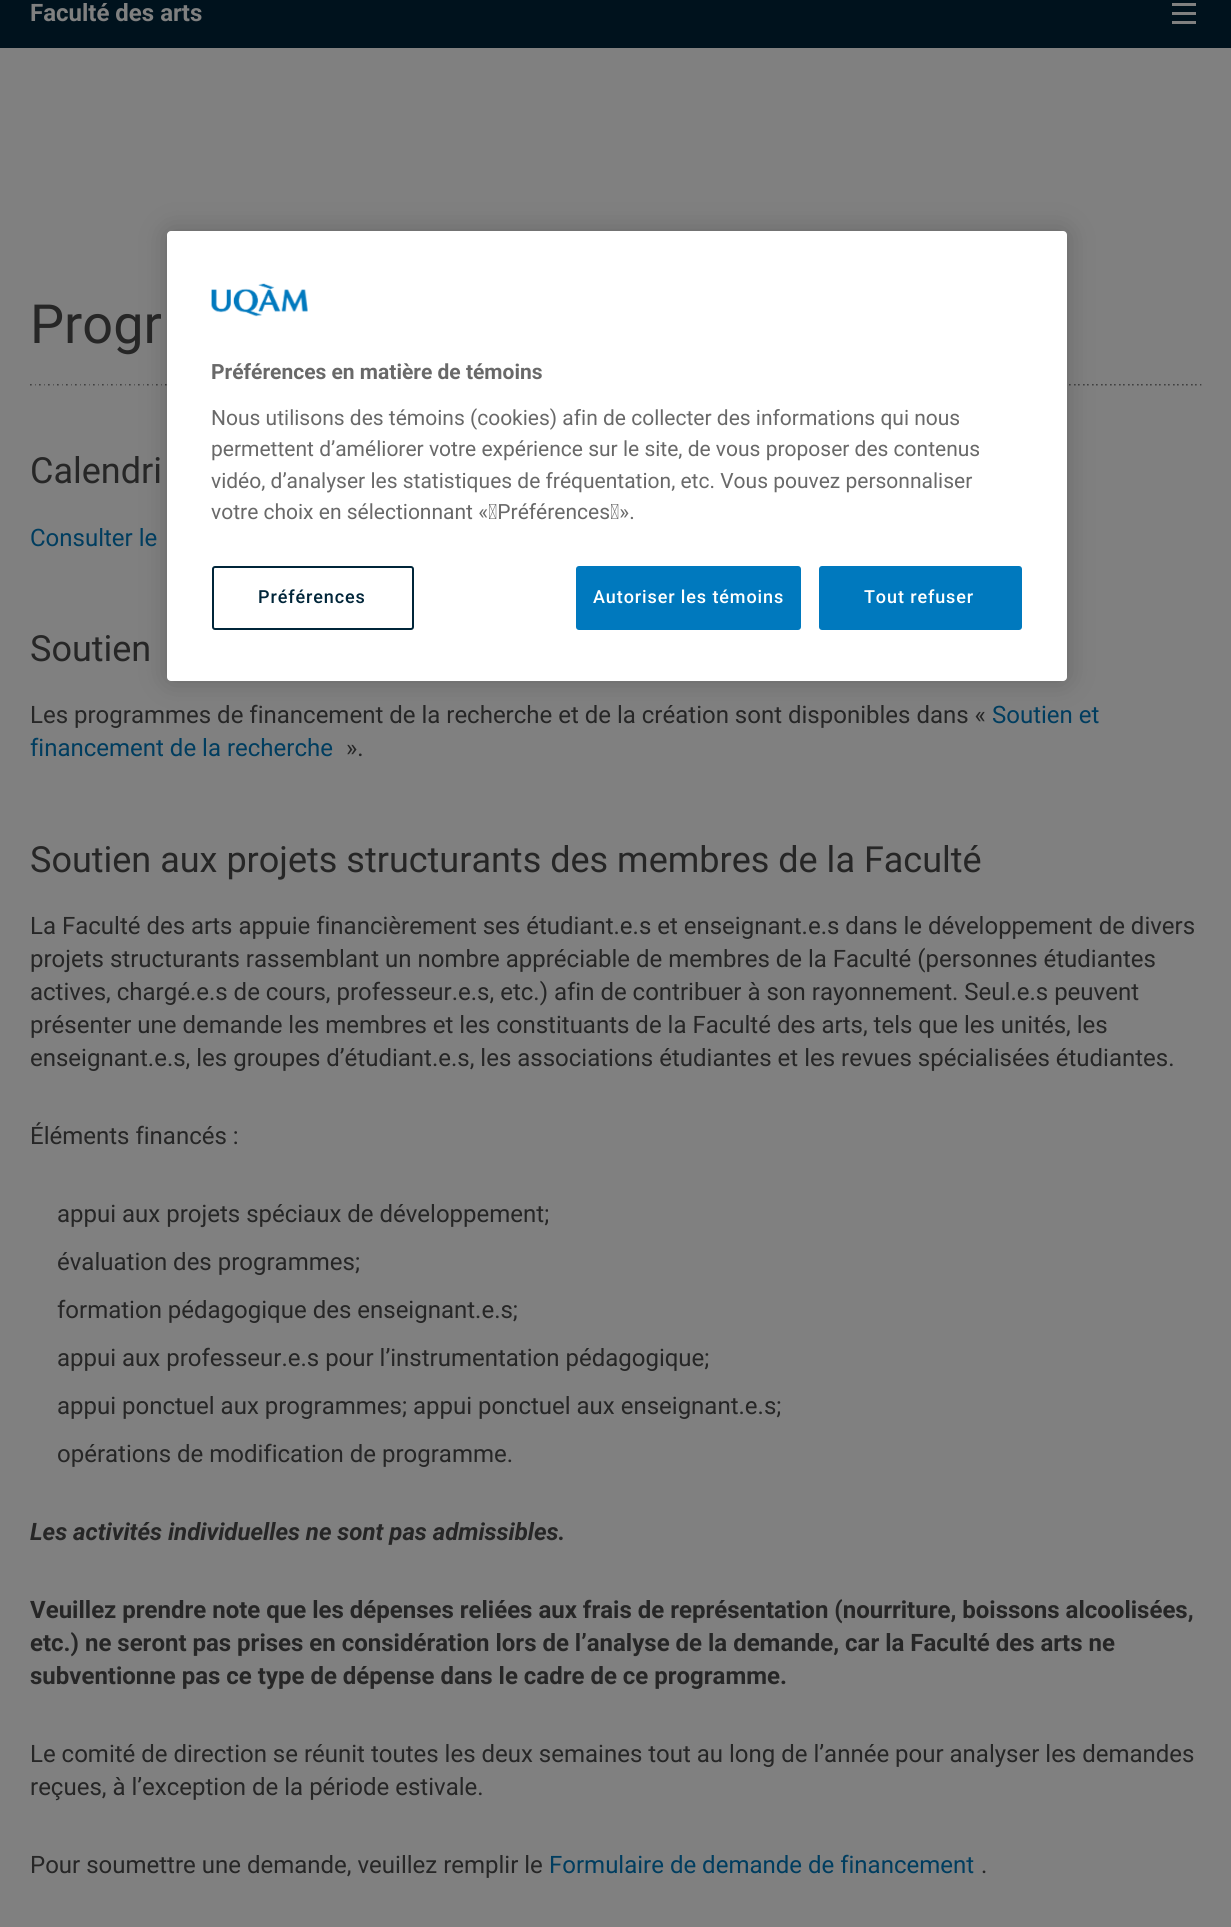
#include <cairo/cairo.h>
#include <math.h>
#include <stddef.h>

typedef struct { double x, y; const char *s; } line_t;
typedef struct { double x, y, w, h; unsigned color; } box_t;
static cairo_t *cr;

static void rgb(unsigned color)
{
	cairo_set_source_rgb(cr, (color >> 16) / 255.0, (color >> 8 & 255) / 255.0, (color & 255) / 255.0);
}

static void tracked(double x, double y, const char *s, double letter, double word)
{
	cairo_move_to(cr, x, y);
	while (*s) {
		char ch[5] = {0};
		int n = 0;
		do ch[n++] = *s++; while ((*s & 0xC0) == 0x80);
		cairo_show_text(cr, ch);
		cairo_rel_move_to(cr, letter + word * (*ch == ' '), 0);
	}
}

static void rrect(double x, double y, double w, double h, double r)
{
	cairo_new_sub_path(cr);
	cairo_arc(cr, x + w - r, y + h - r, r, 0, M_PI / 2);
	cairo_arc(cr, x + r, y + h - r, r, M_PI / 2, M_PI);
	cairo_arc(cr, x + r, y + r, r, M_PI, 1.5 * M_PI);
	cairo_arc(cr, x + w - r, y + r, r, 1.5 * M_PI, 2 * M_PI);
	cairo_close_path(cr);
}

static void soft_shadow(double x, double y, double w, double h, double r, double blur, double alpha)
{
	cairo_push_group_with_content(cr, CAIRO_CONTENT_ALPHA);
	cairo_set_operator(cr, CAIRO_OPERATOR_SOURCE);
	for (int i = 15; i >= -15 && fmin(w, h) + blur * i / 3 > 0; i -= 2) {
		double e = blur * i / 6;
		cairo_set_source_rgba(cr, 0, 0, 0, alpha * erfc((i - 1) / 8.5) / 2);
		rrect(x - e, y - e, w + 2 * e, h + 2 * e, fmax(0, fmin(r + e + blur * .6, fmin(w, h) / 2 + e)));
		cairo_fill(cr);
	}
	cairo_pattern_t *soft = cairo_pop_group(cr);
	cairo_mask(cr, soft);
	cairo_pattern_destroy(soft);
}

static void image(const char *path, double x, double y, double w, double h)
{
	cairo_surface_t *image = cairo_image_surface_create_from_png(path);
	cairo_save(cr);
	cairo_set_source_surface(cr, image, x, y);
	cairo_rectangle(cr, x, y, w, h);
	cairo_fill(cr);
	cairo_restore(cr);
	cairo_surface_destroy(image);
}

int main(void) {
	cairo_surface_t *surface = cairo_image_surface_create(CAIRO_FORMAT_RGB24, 1231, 1927);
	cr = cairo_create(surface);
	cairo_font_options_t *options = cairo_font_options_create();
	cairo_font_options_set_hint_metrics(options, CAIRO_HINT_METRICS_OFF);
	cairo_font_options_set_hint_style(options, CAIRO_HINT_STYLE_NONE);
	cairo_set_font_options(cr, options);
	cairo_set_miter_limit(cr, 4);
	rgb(0x808080);
	cairo_paint(cr);
	{
		static const box_t items[] = {
			{0, 0, 1231, 48, 0x00121d},
			{1172, 3, 24, 3, 0x808080},
			{1172, 12, 24, 3, 0x808080},
			{1172, 21, 24, 3, 0x808080},
		};
		for (size_t i = 0; i < sizeof items / sizeof *items; i++) {
			rgb(items[i].color);
			cairo_rectangle(cr, items[i].x, items[i].y, items[i].w, items[i].h);
			cairo_fill(cr);
		}
	}
	image("img/1.png", 30, 384, 1172, 2);
	rgb(0x000000);
	soft_shadow(167, 231, 900, 450, 4, 13.5, 0.2);
	rgb(0xffffff);
	rrect(167, 231, 900, 450, 4);
	cairo_fill(cr);
	image("img/2.png", 211, 283, 97, 34);
	rrect(213, 567, 200, 62, 2);
	rgb(0x002539);
	cairo_stroke(cr);
	rgb(0x0079be);
	rrect(577, 567, 223, 62, 2);
	cairo_fill_preserve(cr);
	cairo_stroke(cr);
	rrect(820, 567, 201, 62, 2);
	cairo_fill_preserve(cr);
	cairo_stroke(cr);
	cairo_select_font_face(cr, "Roboto", CAIRO_FONT_SLANT_NORMAL, CAIRO_FONT_WEIGHT_BOLD);
	cairo_set_font_size(cr, 24);
	rgb(0x808080);
	cairo_move_to(cr, 30, 21);
	cairo_show_text(cr, "Faculté des arts");
	cairo_select_font_face(cr, "Roboto", CAIRO_FONT_SLANT_NORMAL, CAIRO_FONT_WEIGHT_NORMAL);
	cairo_set_font_size(cr, 54);
	rgb(0x262626);
	cairo_move_to(cr, 30, 343);
	cairo_show_text(cr, "Progr");
	cairo_set_font_size(cr, 36);
	cairo_move_to(cr, 30, 483);
	cairo_show_text(cr, "Calendri");
	cairo_set_font_size(cr, 24);
	rgb(0x003d5f);
	cairo_move_to(cr, 30, 546);
	cairo_show_text(cr, "Consulter le");
	cairo_set_font_size(cr, 36);
	rgb(0x262626);
	cairo_move_to(cr, 30, 661);
	cairo_show_text(cr, "Soutien");
	cairo_set_font_size(cr, 24);
	cairo_move_to(cr, 30, 723);
	cairo_show_text(cr, "Les programmes de financement de la recherche et de la création sont disponibles dans «");
	rgb(0x003d5f);
	cairo_move_to(cr, 992, 723);
	cairo_show_text(cr, "Soutien et");
	cairo_move_to(cr, 30, 756);
	cairo_show_text(cr, "financement de la recherche");
	rgb(0x262626);
	cairo_move_to(cr, 346, 756);
	cairo_show_text(cr, "».");
	cairo_set_font_size(cr, 36);
	cairo_move_to(cr, 30, 872);
	cairo_show_text(cr, "Soutien aux projets structurants des membres de la Faculté");
	cairo_set_font_size(cr, 24);
	{
		static const line_t items[] = {
			{30, 934, "La Faculté des arts appuie financièrement ses étudiant.e.s et enseignant.e.s dans le développement de divers"},
			{30, 967, "projets structurants rassemblant un nombre appréciable de membres de la Faculté (personnes étudiantes"},
			{30, 1000, "actives, chargé.e.s de cours, professeur.e.s, etc.) afin de contribuer à son rayonnement. Seul.e.s peuvent"},
			{30, 1033, "présenter une demande les membres et les constituants de la Faculté des arts, tels que les unités, les"},
			{30, 1066, "enseignant.e.s, les groupes d’étudiant.e.s, les associations étudiantes et les revues spécialisées étudiantes."},
			{30, 1144, "Éléments financés :"},
			{57, 1222, "appui aux projets spéciaux de développement;"},
			{57, 1270, "évaluation des programmes;"},
			{57, 1318, "formation pédagogique des enseignant.e.s;"},
			{57, 1366, "appui aux professeur.e.s pour l’instrumentation pédagogique;"},
			{57, 1414, "appui ponctuel aux programmes; appui ponctuel aux enseignant.e.s;"},
			{57, 1462, "opérations de modification de programme."},
		};
		for (size_t i = 0; i < sizeof items / sizeof *items; i++) {
			cairo_move_to(cr, items[i].x, items[i].y);
			cairo_show_text(cr, items[i].s);
		}
	}
	cairo_select_font_face(cr, "Roboto", CAIRO_FONT_SLANT_ITALIC, CAIRO_FONT_WEIGHT_BOLD);
	cairo_move_to(cr, 30, 1540);
	cairo_show_text(cr, "Les activités individuelles ne sont pas admissibles.");
	cairo_select_font_face(cr, "Roboto", CAIRO_FONT_SLANT_NORMAL, CAIRO_FONT_WEIGHT_BOLD);
	{
		static const line_t items[] = {
			{30, 1618, "Veuillez prendre note que les dépenses reliées aux frais de représentation (nourriture, boissons alcoolisées,"},
			{30, 1651, "etc.) ne seront pas prises en considération lors de l’analyse de la demande, car la Faculté des arts ne"},
			{30, 1684, "subventionne pas ce type de dépense dans le cadre de ce programme."},
		};
		for (size_t i = 0; i < sizeof items / sizeof *items; i++) {
			cairo_move_to(cr, items[i].x, items[i].y);
			cairo_show_text(cr, items[i].s);
		}
	}
	cairo_select_font_face(cr, "Roboto", CAIRO_FONT_SLANT_NORMAL, CAIRO_FONT_WEIGHT_NORMAL);
	{
		static const line_t items[] = {
			{30, 1762, "Le comité de direction se réunit toutes les deux semaines tout au long de l’année pour analyser les demandes"},
			{30, 1795, "reçues, à l’exception de la période estivale."},
			{30, 1873, "Pour soumettre une demande, veuillez remplir le"},
		};
		for (size_t i = 0; i < sizeof items / sizeof *items; i++) {
			cairo_move_to(cr, items[i].x, items[i].y);
			cairo_show_text(cr, items[i].s);
		}
	}
	rgb(0x003d5f);
	cairo_move_to(cr, 549, 1873);
	cairo_show_text(cr, "Formulaire de demande de financement");
	rgb(0x262626);
	cairo_move_to(cr, 981, 1873);
	cairo_show_text(cr, ".");
	cairo_select_font_face(cr, "Roboto", CAIRO_FONT_SLANT_NORMAL, CAIRO_FONT_WEIGHT_BOLD);
	cairo_set_font_size(cr, 21);
	rgb(0x696969);
	cairo_move_to(cr, 211, 379);
	cairo_show_text(cr, "Préférences en matière de témoins");
	cairo_select_font_face(cr, "Roboto", CAIRO_FONT_SLANT_NORMAL, CAIRO_FONT_WEIGHT_NORMAL);
	{
		static const line_t items[] = {
			{211, 425, "Nous utilisons des témoins (cookies) afin de collecter des informations qui nous"},
			{211, 456, "permettent d’améliorer votre expérience sur le site, de vous proposer des contenus"},
			{211, 488, "vidéo, d’analyser les statistiques de fréquentation, etc. Vous pouvez personnaliser"},
			{211, 519, "votre choix en sélectionnant « Préférences »."},
		};
		for (size_t i = 0; i < sizeof items / sizeof *items; i++) {
			cairo_move_to(cr, items[i].x, items[i].y);
			cairo_show_text(cr, items[i].s);
		}
	}
	cairo_select_font_face(cr, "Roboto Medium", CAIRO_FONT_SLANT_NORMAL, CAIRO_FONT_WEIGHT_NORMAL);
	cairo_set_font_size(cr, 18);
	rgb(0x002539);
	tracked(258, 603, "Préférences", 0.9, 0);
	rgb(0xffffff);
	tracked(593, 603, "Autoriser les témoins", 0.9, 0);
	tracked(864, 603, "Tout refuser", 0.9, 0);
	cairo_surface_write_to_png(surface, "page.png");
	cairo_font_options_destroy(options);
	cairo_destroy(cr);
	cairo_surface_destroy(surface);
	return 0;
}
